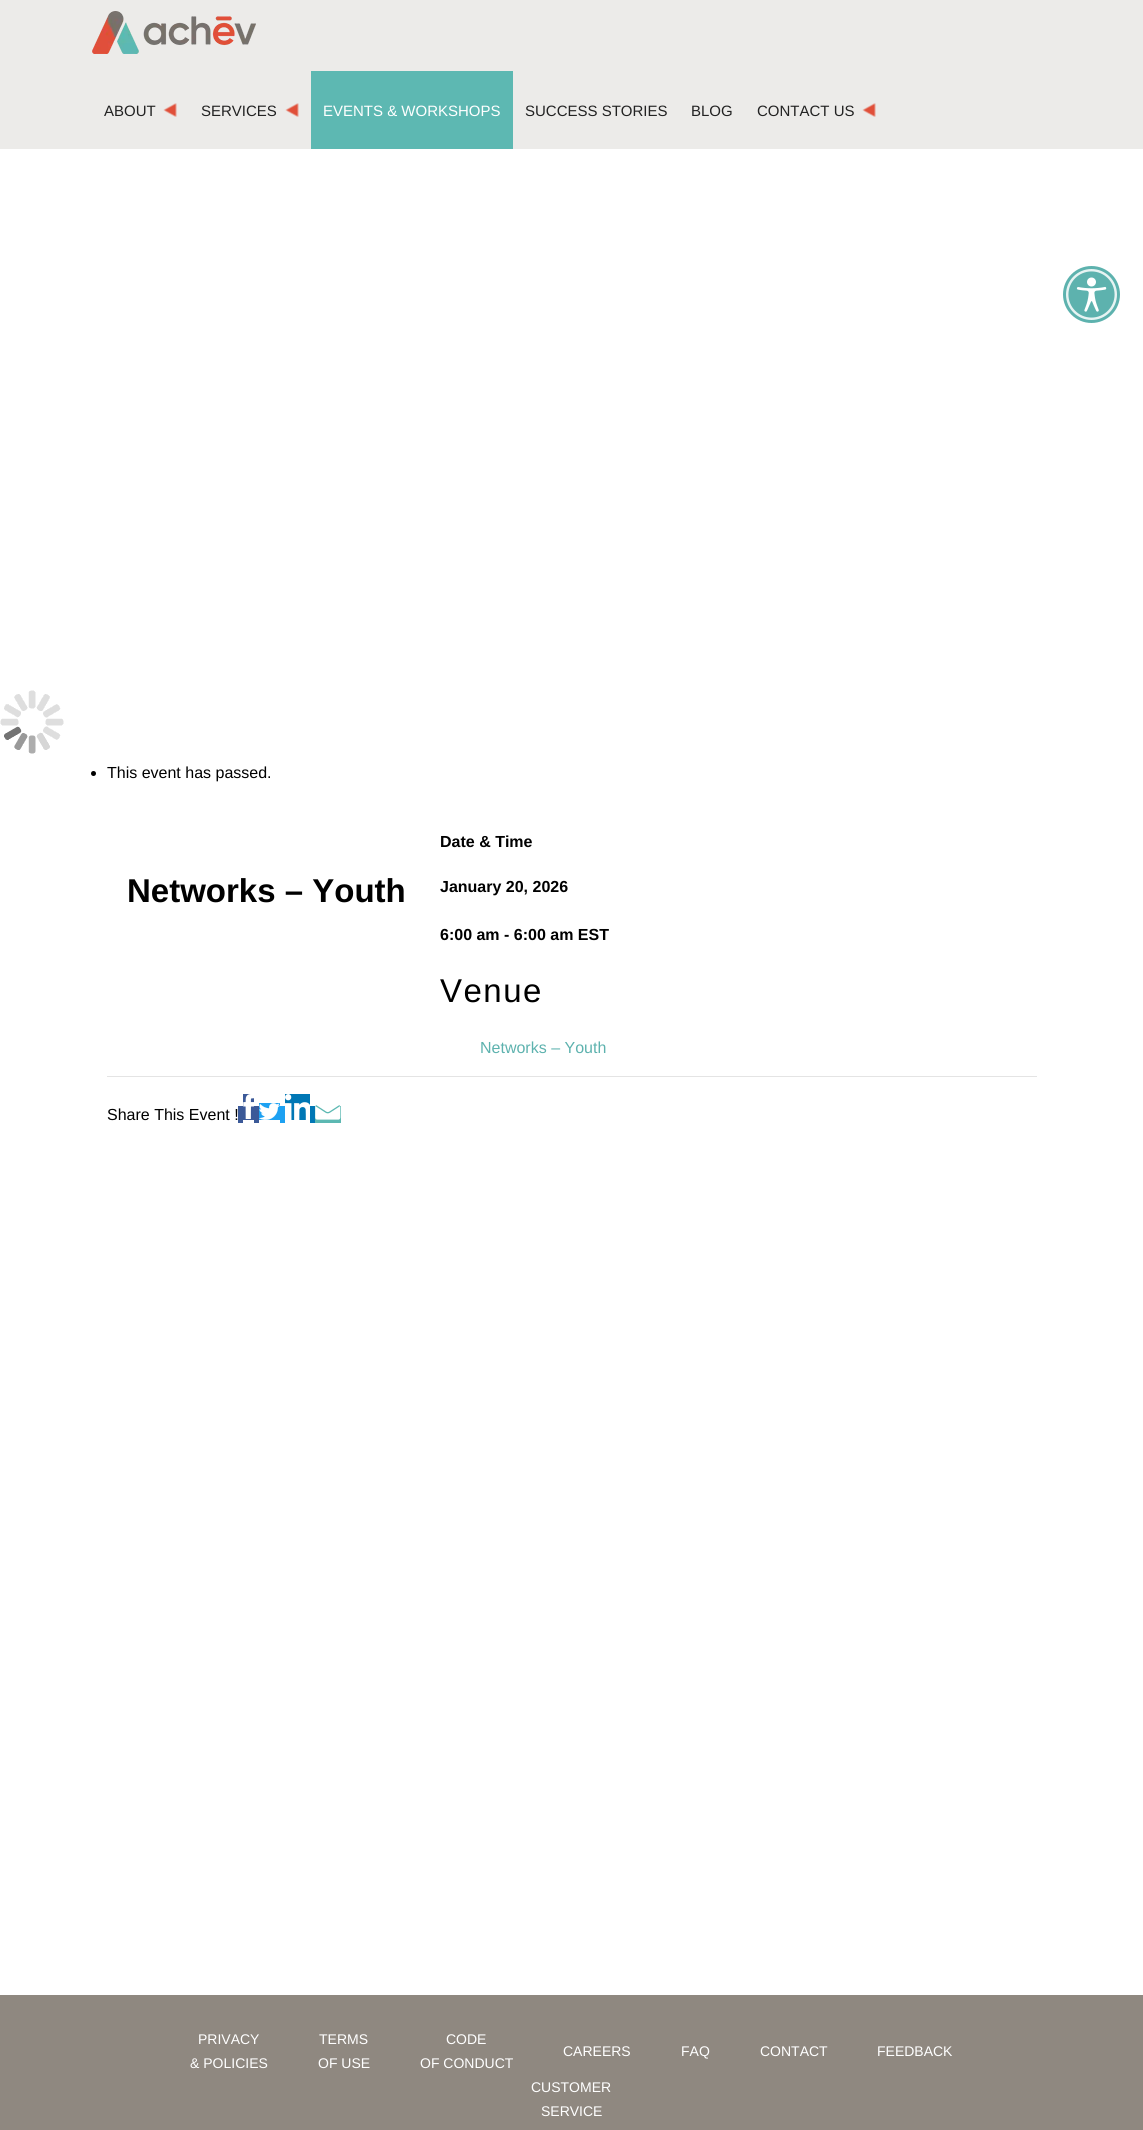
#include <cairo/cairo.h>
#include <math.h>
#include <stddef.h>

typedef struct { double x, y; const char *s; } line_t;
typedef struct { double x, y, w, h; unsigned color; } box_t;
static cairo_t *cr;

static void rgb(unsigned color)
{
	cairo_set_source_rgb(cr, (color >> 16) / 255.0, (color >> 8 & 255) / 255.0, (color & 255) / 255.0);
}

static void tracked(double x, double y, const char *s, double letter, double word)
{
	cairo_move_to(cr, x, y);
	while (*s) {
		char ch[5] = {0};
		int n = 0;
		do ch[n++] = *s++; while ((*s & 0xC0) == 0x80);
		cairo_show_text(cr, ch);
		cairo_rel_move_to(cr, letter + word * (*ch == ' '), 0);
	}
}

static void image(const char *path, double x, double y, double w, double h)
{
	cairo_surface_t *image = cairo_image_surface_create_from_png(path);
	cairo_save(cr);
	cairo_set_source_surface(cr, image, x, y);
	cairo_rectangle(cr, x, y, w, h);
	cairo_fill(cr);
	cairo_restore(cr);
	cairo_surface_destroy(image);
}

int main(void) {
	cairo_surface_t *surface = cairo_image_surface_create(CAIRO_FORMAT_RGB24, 1143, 2130);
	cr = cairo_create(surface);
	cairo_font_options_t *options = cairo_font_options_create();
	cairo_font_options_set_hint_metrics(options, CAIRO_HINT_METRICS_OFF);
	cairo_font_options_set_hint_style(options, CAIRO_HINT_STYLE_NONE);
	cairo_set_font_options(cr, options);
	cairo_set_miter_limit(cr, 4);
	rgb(0xffffff);
	cairo_paint(cr);
	rgb(0xecebe9);
	cairo_rectangle(cr, 0, 0, 1143, 149);
	cairo_fill(cr);
	image("img/1.png", 92, 11, 164, 43);
	image("img/2.png", 163, 103, 14, 14);
	image("img/2.png", 285, 103, 14, 14);
	rgb(0x5db8b2);
	cairo_rectangle(cr, 311, 71, 202, 78);
	cairo_fill(cr);
	image("img/2.png", 862, 103, 14, 14);
	rgb(0x5db2ae);
	cairo_arc(cr, 1091.5, 294.5, 28.5, 0, 2 * M_PI);
	cairo_fill(cr);
	image("img/3.png", 1066, 269, 51, 51);
	image("img/4.png", 0, 690, 64, 64);
	rgb(0x000000);
	cairo_arc(cr, 93.5, 773.5, 2.5, 0, 2 * M_PI);
	cairo_fill(cr);
	rgb(0xe4e4e4);
	cairo_rectangle(cr, 107, 1076, 930, 1);
	cairo_fill(cr);
	rgb(0x3b5998);
	cairo_rectangle(cr, 243, 1094, 11, 26);
	cairo_fill(cr);
	image("img/5.png", 243, 1094, 11, 25);
	rgb(0x0077b5);
	cairo_rectangle(cr, 285, 1094, 25, 26);
	cairo_fill(cr);
	rgb(0x1da1f2);
	cairo_rectangle(cr, 259, 1103, 21, 17);
	cairo_fill(cr);
	image("img/6.png", 285, 1094, 25, 26);
	rgb(0x3b5998);
	cairo_rectangle(cr, 238, 1106, 5, 17);
	cairo_fill(cr);
	cairo_rectangle(cr, 254, 1106, 5, 17);
	cairo_fill(cr);
	image("img/7.png", 259, 1103, 21, 17);
	{
		static const box_t items[] = {
			{280, 1106, 5, 17, 0x1da1f2},
			{310, 1106, 5, 17, 0x0077b5},
			{315, 1106, 26, 17, 0x5cb8b2},
		};
		for (size_t i = 0; i < sizeof items / sizeof *items; i++) {
			rgb(items[i].color);
			cairo_rectangle(cr, items[i].x, items[i].y, items[i].w, items[i].h);
			cairo_fill(cr);
		}
	}
	image("img/8.png", 315, 1105, 26, 15);
	rgb(0x8f8880);
	cairo_rectangle(cr, 0, 1995, 1143, 135);
	cairo_fill(cr);
	cairo_select_font_face(cr, "Liberation Sans", CAIRO_FONT_SLANT_NORMAL, CAIRO_FONT_WEIGHT_NORMAL);
	cairo_set_font_size(cr, 15);
	rgb(0x222222);
	cairo_move_to(cr, 104, 116);
	cairo_show_text(cr, "ABOUT");
	cairo_move_to(cr, 201, 116);
	cairo_show_text(cr, "SERVICES");
	rgb(0xffffff);
	cairo_move_to(cr, 323, 116);
	cairo_show_text(cr, "EVENTS & WORKSHOPS");
	rgb(0x222222);
	{
		static const line_t items[] = {
			{525, 116, "SUCCESS STORIES"},
			{691, 116, "BLOG"},
			{757, 116, "CONTACT US"},
		};
		for (size_t i = 0; i < sizeof items / sizeof *items; i++) {
			cairo_move_to(cr, items[i].x, items[i].y);
			cairo_show_text(cr, items[i].s);
		}
	}
	cairo_set_font_size(cr, 16);
	rgb(0x000000);
	cairo_move_to(cr, 107, 778);
	cairo_show_text(cr, "This event has passed.");
	cairo_select_font_face(cr, "Liberation Sans", CAIRO_FONT_SLANT_NORMAL, CAIRO_FONT_WEIGHT_BOLD);
	cairo_set_font_size(cr, 33);
	cairo_move_to(cr, 127, 902);
	cairo_show_text(cr, "Networks – Youth");
	cairo_set_font_size(cr, 16);
	{
		static const line_t items[] = {
			{440, 847, "Date & Time"},
			{440, 892, "January 20, 2026"},
			{440, 940, "6:00 am - 6:00 am EST"},
		};
		for (size_t i = 0; i < sizeof items / sizeof *items; i++) {
			cairo_move_to(cr, items[i].x, items[i].y);
			cairo_show_text(cr, items[i].s);
		}
	}
	cairo_select_font_face(cr, "Liberation Sans", CAIRO_FONT_SLANT_NORMAL, CAIRO_FONT_WEIGHT_NORMAL);
	cairo_set_font_size(cr, 33);
	tracked(440, 1002, "Venue", 1.5, 0);
	cairo_set_font_size(cr, 16);
	rgb(0x5db2ae);
	cairo_move_to(cr, 480, 1053);
	cairo_show_text(cr, "Networks – Youth");
	rgb(0x000000);
	cairo_move_to(cr, 107, 1120);
	cairo_show_text(cr, "Share This Event !");
	cairo_set_font_size(cr, 14);
	rgb(0xffffff);
	{
		static const line_t items[] = {
			{198, 2044, "PRIVACY"},
			{190, 2068, "& POLICIES"},
			{319, 2044, "TERMS"},
			{318, 2068, "OF USE"},
			{446, 2044, "CODE"},
			{420, 2068, "OF CONDUCT"},
			{563, 2056, "CAREERS"},
			{681, 2056, "FAQ"},
			{760, 2056, "CONTACT"},
			{877, 2056, "FEEDBACK"},
			{531, 2092, "CUSTOMER"},
			{541, 2116, "SERVICE"},
		};
		for (size_t i = 0; i < sizeof items / sizeof *items; i++) {
			cairo_move_to(cr, items[i].x, items[i].y);
			cairo_show_text(cr, items[i].s);
		}
	}
	cairo_surface_write_to_png(surface, "page.png");
	cairo_font_options_destroy(options);
	cairo_destroy(cr);
	cairo_surface_destroy(surface);
	return 0;
}
